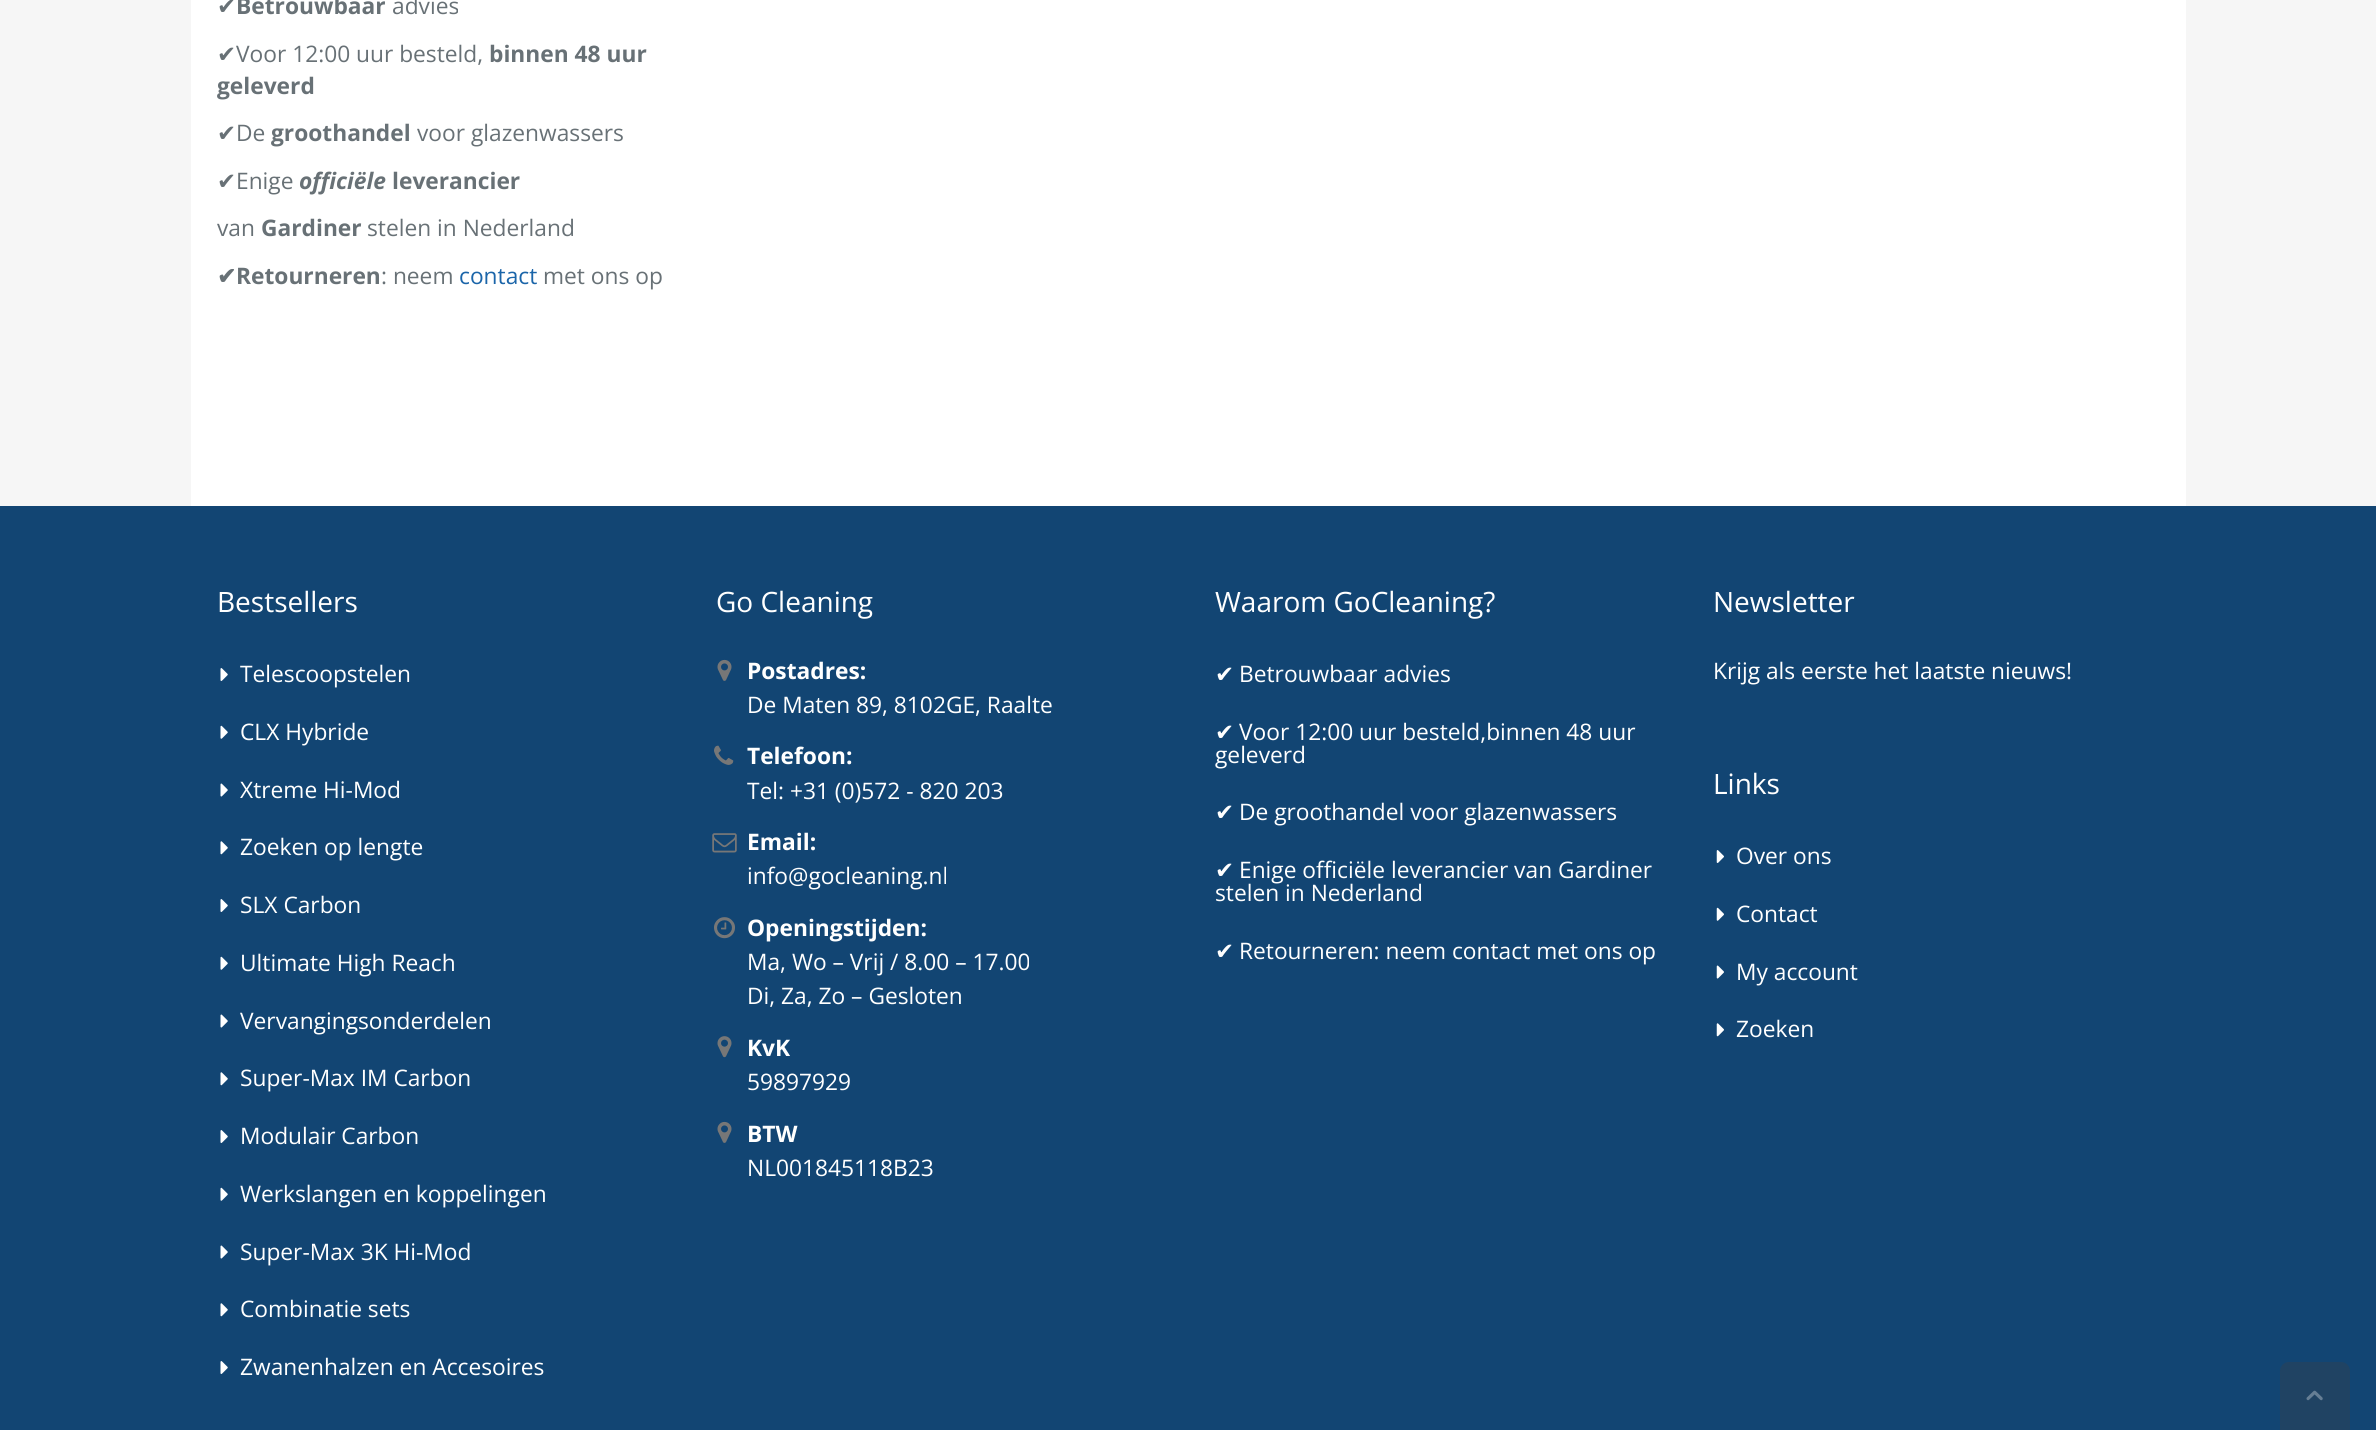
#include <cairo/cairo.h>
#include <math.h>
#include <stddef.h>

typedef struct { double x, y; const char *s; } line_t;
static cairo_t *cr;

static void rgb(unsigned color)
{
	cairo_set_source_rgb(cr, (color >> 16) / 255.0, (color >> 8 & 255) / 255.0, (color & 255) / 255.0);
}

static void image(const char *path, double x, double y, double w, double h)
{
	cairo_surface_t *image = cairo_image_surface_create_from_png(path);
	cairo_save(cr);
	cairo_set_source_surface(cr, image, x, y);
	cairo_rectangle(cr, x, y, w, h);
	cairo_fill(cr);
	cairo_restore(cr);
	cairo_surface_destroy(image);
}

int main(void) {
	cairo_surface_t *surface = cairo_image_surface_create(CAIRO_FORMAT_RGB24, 2376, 1430);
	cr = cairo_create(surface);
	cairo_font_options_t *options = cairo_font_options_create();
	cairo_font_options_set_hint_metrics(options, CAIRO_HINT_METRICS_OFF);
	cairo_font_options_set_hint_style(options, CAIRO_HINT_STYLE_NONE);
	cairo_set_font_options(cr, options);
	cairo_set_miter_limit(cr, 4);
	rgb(0xf6f6f6);
	cairo_paint(cr);
	rgb(0xffffff);
	cairo_rectangle(cr, 191, 0, 1995, 506);
	cairo_fill(cr);
	rgb(0x124573);
	cairo_rectangle(cr, 0, 506, 2376, 924);
	cairo_fill(cr);
	image("img/1.png", 220, 668, 8, 13);
	image("img/2.png", 220, 725, 8, 14);
	image("img/3.png", 220, 783, 8, 14);
	image("img/4.png", 220, 841, 8, 14);
	image("img/1.png", 220, 899, 8, 13);
	image("img/2.png", 220, 956, 8, 14);
	image("img/3.png", 220, 1014, 8, 14);
	image("img/4.png", 220, 1072, 8, 14);
	image("img/1.png", 220, 1130, 8, 13);
	image("img/2.png", 220, 1187, 8, 14);
	image("img/3.png", 220, 1245, 8, 14);
	image("img/4.png", 220, 1303, 8, 14);
	image("img/1.png", 220, 1361, 8, 13);
	image("img/5.png", 717, 659, 15, 22);
	image("img/6.png", 714, 745, 20, 20);
	image("img/7.png", 712, 833, 25, 20);
	image("img/8.png", 714, 917, 21, 22);
	image("img/9.png", 717, 1036, 15, 22);
	image("img/5.png", 717, 1121, 15, 22);
	image("img/10.png", 1716, 850, 8, 13);
	image("img/11.png", 1716, 907, 8, 14);
	image("img/12.png", 1716, 965, 8, 14);
	image("img/13.png", 1716, 1023, 8, 14);
	rgb(0x204363);
	cairo_new_path(cr);
	cairo_move_to(cr, 2289, 1362);
	cairo_line_to(cr, 2341, 1362);
	cairo_curve_to(cr, 2346, 1362, 2350, 1366, 2350, 1371);
	cairo_line_to(cr, 2350, 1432);
	cairo_line_to(cr, 2280, 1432);
	cairo_line_to(cr, 2280, 1371);
	cairo_curve_to(cr, 2280, 1366, 2284, 1362, 2289, 1362);
	cairo_close_path(cr);
	cairo_fill(cr);
	image("img/14.png", 2306, 1390, 17, 11);
	cairo_select_font_face(cr, "DejaVu Sans", CAIRO_FONT_SLANT_NORMAL, CAIRO_FONT_WEIGHT_NORMAL);
	cairo_set_font_size(cr, 22.75);
	rgb(0x687176);
	cairo_move_to(cr, 217, 14);
	cairo_show_text(cr, "✔");
	cairo_select_font_face(cr, "Open Sans", CAIRO_FONT_SLANT_NORMAL, CAIRO_FONT_WEIGHT_BOLD);
	cairo_move_to(cr, 236, 14);
	cairo_show_text(cr, "Betrouwbaar");
	cairo_select_font_face(cr, "Open Sans", CAIRO_FONT_SLANT_NORMAL, CAIRO_FONT_WEIGHT_NORMAL);
	cairo_move_to(cr, 392, 14);
	cairo_show_text(cr, "advies");
	cairo_select_font_face(cr, "DejaVu Sans", CAIRO_FONT_SLANT_NORMAL, CAIRO_FONT_WEIGHT_NORMAL);
	cairo_move_to(cr, 217, 62);
	cairo_show_text(cr, "✔");
	cairo_select_font_face(cr, "Open Sans", CAIRO_FONT_SLANT_NORMAL, CAIRO_FONT_WEIGHT_NORMAL);
	cairo_move_to(cr, 236, 62);
	cairo_show_text(cr, "Voor 12:00 uur besteld,");
	cairo_select_font_face(cr, "Open Sans", CAIRO_FONT_SLANT_NORMAL, CAIRO_FONT_WEIGHT_BOLD);
	cairo_move_to(cr, 489, 62);
	cairo_show_text(cr, "binnen 48 uur");
	cairo_move_to(cr, 217, 94);
	cairo_show_text(cr, "geleverd");
	cairo_select_font_face(cr, "DejaVu Sans", CAIRO_FONT_SLANT_NORMAL, CAIRO_FONT_WEIGHT_NORMAL);
	cairo_move_to(cr, 217, 141);
	cairo_show_text(cr, "✔");
	cairo_select_font_face(cr, "Open Sans", CAIRO_FONT_SLANT_NORMAL, CAIRO_FONT_WEIGHT_NORMAL);
	cairo_move_to(cr, 236, 141);
	cairo_show_text(cr, "De");
	cairo_select_font_face(cr, "Open Sans", CAIRO_FONT_SLANT_NORMAL, CAIRO_FONT_WEIGHT_BOLD);
	cairo_move_to(cr, 271, 141);
	cairo_show_text(cr, "groothandel");
	cairo_select_font_face(cr, "Open Sans", CAIRO_FONT_SLANT_NORMAL, CAIRO_FONT_WEIGHT_NORMAL);
	cairo_move_to(cr, 417, 141);
	cairo_show_text(cr, "voor glazenwassers");
	cairo_select_font_face(cr, "DejaVu Sans", CAIRO_FONT_SLANT_NORMAL, CAIRO_FONT_WEIGHT_NORMAL);
	cairo_move_to(cr, 217, 189);
	cairo_show_text(cr, "✔");
	cairo_select_font_face(cr, "Open Sans", CAIRO_FONT_SLANT_NORMAL, CAIRO_FONT_WEIGHT_NORMAL);
	cairo_move_to(cr, 236, 189);
	cairo_show_text(cr, "Enige");
	cairo_select_font_face(cr, "Open Sans", CAIRO_FONT_SLANT_ITALIC, CAIRO_FONT_WEIGHT_BOLD);
	cairo_move_to(cr, 299, 189);
	cairo_show_text(cr, "officiële");
	cairo_select_font_face(cr, "Open Sans", CAIRO_FONT_SLANT_NORMAL, CAIRO_FONT_WEIGHT_BOLD);
	cairo_move_to(cr, 392, 189);
	cairo_show_text(cr, "leverancier");
	cairo_select_font_face(cr, "Open Sans", CAIRO_FONT_SLANT_NORMAL, CAIRO_FONT_WEIGHT_NORMAL);
	cairo_move_to(cr, 217, 236);
	cairo_show_text(cr, "van");
	cairo_select_font_face(cr, "Open Sans", CAIRO_FONT_SLANT_NORMAL, CAIRO_FONT_WEIGHT_BOLD);
	cairo_move_to(cr, 261, 236);
	cairo_show_text(cr, "Gardiner");
	cairo_select_font_face(cr, "Open Sans", CAIRO_FONT_SLANT_NORMAL, CAIRO_FONT_WEIGHT_NORMAL);
	cairo_move_to(cr, 367, 236);
	cairo_show_text(cr, "stelen in Nederland");
	cairo_select_font_face(cr, "DejaVu Sans", CAIRO_FONT_SLANT_NORMAL, CAIRO_FONT_WEIGHT_BOLD);
	cairo_move_to(cr, 217, 284);
	cairo_show_text(cr, "✔");
	cairo_select_font_face(cr, "Open Sans", CAIRO_FONT_SLANT_NORMAL, CAIRO_FONT_WEIGHT_BOLD);
	cairo_move_to(cr, 236, 284);
	cairo_show_text(cr, "Retourneren");
	cairo_select_font_face(cr, "Open Sans", CAIRO_FONT_SLANT_NORMAL, CAIRO_FONT_WEIGHT_NORMAL);
	cairo_move_to(cr, 381, 284);
	cairo_show_text(cr, ": neem");
	rgb(0x1b65a9);
	cairo_move_to(cr, 459, 284);
	cairo_show_text(cr, "contact");
	rgb(0x687176);
	cairo_move_to(cr, 543, 284);
	cairo_show_text(cr, "met ons op");
	cairo_set_font_size(cr, 28);
	rgb(0xffffff);
	cairo_move_to(cr, 217, 612);
	cairo_show_text(cr, "Bestsellers");
	cairo_set_font_size(cr, 22.75);
	{
		static const line_t items[] = {
			{240, 682, "Telescoopstelen"},
			{240, 740, "CLX Hybride"},
			{240, 798, "Xtreme Hi-Mod"},
			{240, 855, "Zoeken op lengte"},
			{240, 913, "SLX Carbon"},
			{240, 971, "Ultimate High Reach"},
			{240, 1029, "Vervangingsonderdelen"},
			{240, 1086, "Super-Max IM Carbon"},
			{240, 1144, "Modulair Carbon"},
			{240, 1202, "Werkslangen en koppelingen"},
			{240, 1260, "Super-Max 3K Hi-Mod"},
			{240, 1317, "Combinatie sets"},
			{240, 1375, "Zwanenhalzen en Accesoires"},
		};
		for (size_t i = 0; i < sizeof items / sizeof *items; i++) {
			cairo_move_to(cr, items[i].x, items[i].y);
			cairo_show_text(cr, items[i].s);
		}
	}
	cairo_set_font_size(cr, 28);
	cairo_move_to(cr, 716, 612);
	cairo_show_text(cr, "Go Cleaning");
	cairo_select_font_face(cr, "Open Sans", CAIRO_FONT_SLANT_NORMAL, CAIRO_FONT_WEIGHT_BOLD);
	cairo_set_font_size(cr, 22.75);
	cairo_move_to(cr, 747, 679);
	cairo_show_text(cr, "Postadres:");
	cairo_select_font_face(cr, "Open Sans", CAIRO_FONT_SLANT_NORMAL, CAIRO_FONT_WEIGHT_NORMAL);
	cairo_move_to(cr, 747, 713);
	cairo_show_text(cr, "De Maten 89, 8102GE, Raalte");
	cairo_select_font_face(cr, "Open Sans", CAIRO_FONT_SLANT_NORMAL, CAIRO_FONT_WEIGHT_BOLD);
	cairo_move_to(cr, 747, 764);
	cairo_show_text(cr, "Telefoon:");
	cairo_select_font_face(cr, "Open Sans", CAIRO_FONT_SLANT_NORMAL, CAIRO_FONT_WEIGHT_NORMAL);
	cairo_move_to(cr, 747, 799);
	cairo_show_text(cr, "Tel: +31 (0)572 - 820 203");
	cairo_select_font_face(cr, "Open Sans", CAIRO_FONT_SLANT_NORMAL, CAIRO_FONT_WEIGHT_BOLD);
	cairo_move_to(cr, 747, 850);
	cairo_show_text(cr, "Email:");
	cairo_select_font_face(cr, "Open Sans", CAIRO_FONT_SLANT_NORMAL, CAIRO_FONT_WEIGHT_NORMAL);
	cairo_move_to(cr, 747, 884);
	cairo_show_text(cr, "info@gocleaning.nl");
	cairo_select_font_face(cr, "Open Sans", CAIRO_FONT_SLANT_NORMAL, CAIRO_FONT_WEIGHT_BOLD);
	cairo_move_to(cr, 747, 936);
	cairo_show_text(cr, "Openingstijden:");
	cairo_select_font_face(cr, "Open Sans", CAIRO_FONT_SLANT_NORMAL, CAIRO_FONT_WEIGHT_NORMAL);
	cairo_move_to(cr, 747, 970);
	cairo_show_text(cr, "Ma, Wo – Vrij / 8.00 – 17.00");
	cairo_move_to(cr, 747, 1004);
	cairo_show_text(cr, "Di, Za, Zo – Gesloten");
	cairo_select_font_face(cr, "Open Sans", CAIRO_FONT_SLANT_NORMAL, CAIRO_FONT_WEIGHT_BOLD);
	cairo_move_to(cr, 747, 1056);
	cairo_show_text(cr, "KvK");
	cairo_select_font_face(cr, "Open Sans", CAIRO_FONT_SLANT_NORMAL, CAIRO_FONT_WEIGHT_NORMAL);
	cairo_move_to(cr, 747, 1090);
	cairo_show_text(cr, "59897929");
	cairo_select_font_face(cr, "Open Sans", CAIRO_FONT_SLANT_NORMAL, CAIRO_FONT_WEIGHT_BOLD);
	cairo_move_to(cr, 747, 1142);
	cairo_show_text(cr, "BTW");
	cairo_select_font_face(cr, "Open Sans", CAIRO_FONT_SLANT_NORMAL, CAIRO_FONT_WEIGHT_NORMAL);
	cairo_move_to(cr, 747, 1176);
	cairo_show_text(cr, "NL001845118B23");
	cairo_set_font_size(cr, 28);
	cairo_move_to(cr, 1215, 612);
	cairo_show_text(cr, "Waarom GoCleaning?");
	cairo_select_font_face(cr, "DejaVu Sans", CAIRO_FONT_SLANT_NORMAL, CAIRO_FONT_WEIGHT_NORMAL);
	cairo_set_font_size(cr, 22.75);
	cairo_move_to(cr, 1215, 682);
	cairo_show_text(cr, "✔");
	cairo_select_font_face(cr, "Open Sans", CAIRO_FONT_SLANT_NORMAL, CAIRO_FONT_WEIGHT_NORMAL);
	cairo_move_to(cr, 1239, 682);
	cairo_show_text(cr, "Betrouwbaar advies");
	cairo_select_font_face(cr, "DejaVu Sans", CAIRO_FONT_SLANT_NORMAL, CAIRO_FONT_WEIGHT_NORMAL);
	cairo_move_to(cr, 1215, 740);
	cairo_show_text(cr, "✔");
	cairo_select_font_face(cr, "Open Sans", CAIRO_FONT_SLANT_NORMAL, CAIRO_FONT_WEIGHT_NORMAL);
	cairo_move_to(cr, 1239, 740);
	cairo_show_text(cr, "Voor 12:00 uur besteld,binnen 48 uur");
	cairo_move_to(cr, 1215, 763);
	cairo_show_text(cr, "geleverd");
	cairo_select_font_face(cr, "DejaVu Sans", CAIRO_FONT_SLANT_NORMAL, CAIRO_FONT_WEIGHT_NORMAL);
	cairo_move_to(cr, 1215, 820);
	cairo_show_text(cr, "✔");
	cairo_select_font_face(cr, "Open Sans", CAIRO_FONT_SLANT_NORMAL, CAIRO_FONT_WEIGHT_NORMAL);
	cairo_move_to(cr, 1239, 820);
	cairo_show_text(cr, "De groothandel voor glazenwassers");
	cairo_select_font_face(cr, "DejaVu Sans", CAIRO_FONT_SLANT_NORMAL, CAIRO_FONT_WEIGHT_NORMAL);
	cairo_move_to(cr, 1215, 878);
	cairo_show_text(cr, "✔");
	cairo_select_font_face(cr, "Open Sans", CAIRO_FONT_SLANT_NORMAL, CAIRO_FONT_WEIGHT_NORMAL);
	cairo_move_to(cr, 1239, 878);
	cairo_show_text(cr, "Enige officiële leverancier van Gardiner");
	cairo_move_to(cr, 1215, 901);
	cairo_show_text(cr, "stelen in Nederland");
	cairo_select_font_face(cr, "DejaVu Sans", CAIRO_FONT_SLANT_NORMAL, CAIRO_FONT_WEIGHT_NORMAL);
	cairo_move_to(cr, 1215, 959);
	cairo_show_text(cr, "✔");
	cairo_select_font_face(cr, "Open Sans", CAIRO_FONT_SLANT_NORMAL, CAIRO_FONT_WEIGHT_NORMAL);
	cairo_move_to(cr, 1239, 959);
	cairo_show_text(cr, "Retourneren: neem contact met ons op");
	cairo_set_font_size(cr, 28);
	cairo_move_to(cr, 1713, 612);
	cairo_show_text(cr, "Newsletter");
	cairo_set_font_size(cr, 22.75);
	cairo_move_to(cr, 1713, 679);
	cairo_show_text(cr, "Krijg als eerste het laatste nieuws!");
	cairo_set_font_size(cr, 28);
	cairo_move_to(cr, 1713, 794);
	cairo_show_text(cr, "Links");
	cairo_set_font_size(cr, 22.75);
	{
		static const line_t items[] = {
			{1736, 864, "Over ons"},
			{1736, 922, "Contact"},
			{1736, 980, "My account"},
			{1736, 1037, "Zoeken"},
		};
		for (size_t i = 0; i < sizeof items / sizeof *items; i++) {
			cairo_move_to(cr, items[i].x, items[i].y);
			cairo_show_text(cr, items[i].s);
		}
	}
	cairo_surface_write_to_png(surface, "page.png");
	cairo_font_options_destroy(options);
	cairo_destroy(cr);
	cairo_surface_destroy(surface);
	return 0;
}
